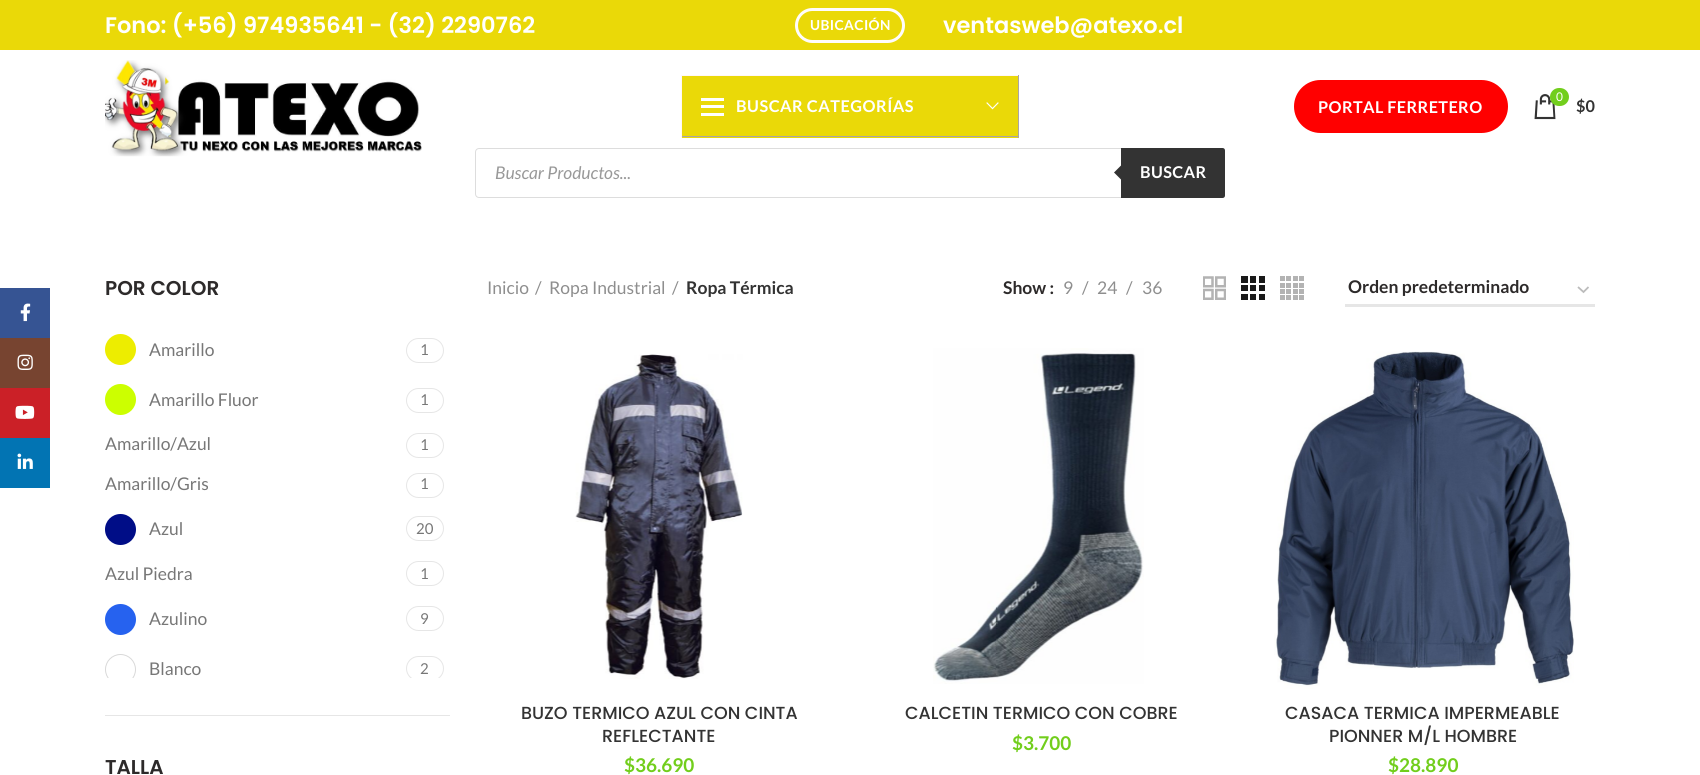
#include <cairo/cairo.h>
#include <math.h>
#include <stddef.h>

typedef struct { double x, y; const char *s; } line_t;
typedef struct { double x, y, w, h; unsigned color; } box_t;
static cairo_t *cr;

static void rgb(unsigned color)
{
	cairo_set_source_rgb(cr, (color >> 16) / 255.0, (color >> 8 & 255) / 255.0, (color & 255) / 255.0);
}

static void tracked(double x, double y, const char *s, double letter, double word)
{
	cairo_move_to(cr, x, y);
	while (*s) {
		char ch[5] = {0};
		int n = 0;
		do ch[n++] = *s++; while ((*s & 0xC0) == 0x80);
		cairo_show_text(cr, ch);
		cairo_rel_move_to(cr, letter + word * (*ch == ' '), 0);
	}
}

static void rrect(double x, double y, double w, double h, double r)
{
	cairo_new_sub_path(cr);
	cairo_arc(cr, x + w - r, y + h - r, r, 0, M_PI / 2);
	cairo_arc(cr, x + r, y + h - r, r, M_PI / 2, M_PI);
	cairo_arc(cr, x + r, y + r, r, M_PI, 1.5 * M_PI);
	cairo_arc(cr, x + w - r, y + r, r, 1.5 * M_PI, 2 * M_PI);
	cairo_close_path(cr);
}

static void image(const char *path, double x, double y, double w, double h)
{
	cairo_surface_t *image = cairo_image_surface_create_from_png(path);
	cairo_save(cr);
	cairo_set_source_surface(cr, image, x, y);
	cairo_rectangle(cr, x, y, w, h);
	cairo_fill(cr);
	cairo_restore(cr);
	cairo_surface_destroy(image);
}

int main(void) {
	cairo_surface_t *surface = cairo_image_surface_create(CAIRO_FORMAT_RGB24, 1700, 775);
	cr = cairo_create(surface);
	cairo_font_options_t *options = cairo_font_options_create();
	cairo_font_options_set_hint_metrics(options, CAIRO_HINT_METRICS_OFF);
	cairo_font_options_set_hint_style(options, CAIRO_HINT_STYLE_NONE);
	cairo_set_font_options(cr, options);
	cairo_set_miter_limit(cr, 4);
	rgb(0xffffff);
	cairo_paint(cr);
	rgb(0x365493);
	cairo_rectangle(cr, 0, 288, 50, 50);
	cairo_fill(cr);
	image("img/1.png", 20, 303, 11, 19);
	rgb(0x774430);
	cairo_rectangle(cr, 0, 338, 50, 50);
	cairo_fill(cr);
	image("img/2.png", 17, 354, 16, 16);
	rgb(0xcb2027);
	cairo_rectangle(cr, 0, 388, 50, 50);
	cairo_fill(cr);
	image("img/3.png", 15, 405, 20, 14);
	rgb(0x0274b3);
	cairo_rectangle(cr, 0, 438, 50, 50);
	cairo_fill(cr);
	image("img/4.png", 17, 453, 16, 16);
	rgb(0xead908);
	cairo_rectangle(cr, 0, 0, 1700, 50);
	cairo_fill(cr);
	rrect(796.5, 9.5, 107, 32, 16);
	rgb(0xfffcfc);
	cairo_set_line_width(cr, 3);
	cairo_stroke(cr);
	image("img/5.png", 105, 60, 317, 97);
	{
		static const box_t items[] = {
			{682, 76, 336, 62, 0xead908},
			{681, 75, 338, 1, 0xfff7f7},
			{1018, 75, 1, 63, 0xaaa5a5},
			{681, 136, 338, 1, 0xaaa5a5},
			{681, 75, 1, 63, 0xfff7f7},
			{701, 105, 23, 3, 0xffffff},
			{701, 98, 23, 3, 0xffffff},
			{701, 113, 23, 3, 0xffffff},
		};
		for (size_t i = 0; i < sizeof items / sizeof *items; i++) {
			rgb(items[i].color);
			cairo_rectangle(cr, items[i].x, items[i].y, items[i].w, items[i].h);
			cairo_fill(cr);
		}
	}
	image("img/6.png", 986, 102, 13, 8);
	rgb(0xff0000);
	rrect(1294, 80, 214, 53, 26.5);
	cairo_fill(cr);
	image("img/7.png", 1534, 94, 22, 26);
	rgb(0x72ce1c);
	rrect(1550, 88, 19, 18, 9);
	cairo_fill(cr);
	rrect(475.5, 148.5, 749, 49, 3.5);
	rgb(0xdddddd);
	cairo_set_line_width(cr, 1);
	cairo_stroke(cr);
	rgb(0x333333);
	cairo_new_path(cr);
	cairo_move_to(cr, 1121, 148);
	cairo_line_to(cr, 1222.5, 148);
	cairo_curve_to(cr, 1224, 148, 1225, 149, 1225, 150.5);
	cairo_line_to(cr, 1225, 195.5);
	cairo_curve_to(cr, 1225, 197, 1224, 198, 1222.5, 198);
	cairo_line_to(cr, 1121, 198);
	cairo_close_path(cr);
	cairo_fill(cr);
	cairo_new_path(cr);
	cairo_move_to(cr, 1124, 162.5);
	cairo_line_to(cr, 1124, 182.5);
	cairo_line_to(cr, 1114, 172.5);
	cairo_close_path(cr);
	cairo_fill(cr);
	rgb(0xe6e6e6);
	cairo_rectangle(cr, 105, 715, 345, 1);
	cairo_fill(cr);
	rgb(0xeded00);
	cairo_arc(cr, 120.5, 349.5, 15.5, 0, 2 * M_PI);
	cairo_fill(cr);
	rrect(406.5, 338.5, 37, 24, 12);
	rgb(0xe6e6e6);
	cairo_stroke(cr);
	rgb(0xccff00);
	cairo_arc(cr, 120.5, 399.5, 15.5, 0, 2 * M_PI);
	cairo_fill(cr);
	rrect(406.5, 388.5, 37, 24, 12);
	rgb(0xe6e6e6);
	cairo_stroke(cr);
	rrect(406.5, 433.5, 37, 24, 12);
	cairo_stroke(cr);
	rrect(406.5, 473.5, 37, 24, 12);
	cairo_stroke(cr);
	rgb(0x000d87);
	cairo_arc(cr, 120.5, 529.5, 15.5, 0, 2 * M_PI);
	cairo_fill(cr);
	rrect(406.5, 516.5, 37, 24, 12);
	rgb(0xe6e6e6);
	cairo_stroke(cr);
	rrect(406.5, 561.5, 37, 24, 12);
	cairo_stroke(cr);
	rgb(0x2662ef);
	cairo_arc(cr, 120.5, 619.5, 15.5, 0, 2 * M_PI);
	cairo_fill(cr);
	rrect(406.5, 606.5, 37, 24, 12);
	rgb(0xe6e6e6);
	cairo_stroke(cr);
	cairo_save(cr);
	cairo_rectangle(cr, 105, 328, 345, 350);
	cairo_clip(cr);
	cairo_arc(cr, 120.5, 669.5, 15, 0, 2 * M_PI);
	rgb(0xd9d9d9);
	cairo_stroke(cr);
	rrect(406.5, 656.5, 37, 24, 12);
	rgb(0xe6e6e6);
	cairo_stroke(cr);
	cairo_restore(cr);
	image("img/8.png", 1203, 276, 23, 24);
	image("img/9.png", 1241, 276, 24, 24);
	image("img/10.png", 1280, 276, 24, 24);
	cairo_new_path(cr);
	cairo_move_to(cr, 1578, 287);
	cairo_line_to(cr, 1583.5, 292);
	cairo_line_to(cr, 1588.5, 287);
	rgb(0xbbbbbb);
	cairo_set_line_width(cr, 1.8);
	cairo_stroke(cr);
	rgb(0xe6e6e6);
	cairo_rectangle(cr, 1345, 304, 250, 3);
	cairo_fill(cr);
	image("img/11.png", 575, 354, 168, 325);
	image("img/12.png", 933, 348, 211, 336);
	image("img/13.png", 1274, 351, 300, 338);
	cairo_select_font_face(cr, "Poppins SemiBold", CAIRO_FONT_SLANT_NORMAL, CAIRO_FONT_WEIGHT_NORMAL);
	cairo_set_font_size(cr, 22.5);
	rgb(0xffffff);
	cairo_move_to(cr, 105, 33);
	cairo_show_text(cr, "Fono: (+56) 974935641 - (32) 2290762");
	cairo_select_font_face(cr, "Lato", CAIRO_FONT_SLANT_NORMAL, CAIRO_FONT_WEIGHT_BOLD);
	cairo_set_font_size(cr, 13.75);
	tracked(810, 30, "UBICACIÓN", 0.4, 0);
	cairo_select_font_face(cr, "Poppins SemiBold", CAIRO_FONT_SLANT_NORMAL, CAIRO_FONT_WEIGHT_NORMAL);
	cairo_set_font_size(cr, 22.5);
	cairo_move_to(cr, 943, 33);
	cairo_show_text(cr, "ventasweb@atexo.cl");
	cairo_select_font_face(cr, "Lato", CAIRO_FONT_SLANT_NORMAL, CAIRO_FONT_WEIGHT_BOLD);
	cairo_set_font_size(cr, 16.25);
	tracked(736, 112, "BUSCAR CATEGORÍAS", 0.5, 0);
	tracked(1318, 113, "PORTAL FERRETERO", 0.4, 0);
	cairo_select_font_face(cr, "Lato", CAIRO_FONT_SLANT_NORMAL, CAIRO_FONT_WEIGHT_NORMAL);
	cairo_set_font_size(cr, 12);
	cairo_move_to(cr, 1556, 101);
	cairo_show_text(cr, "0");
	cairo_select_font_face(cr, "Lato", CAIRO_FONT_SLANT_NORMAL, CAIRO_FONT_WEIGHT_BOLD);
	cairo_set_font_size(cr, 16.25);
	rgb(0x333333);
	cairo_move_to(cr, 1576, 112);
	cairo_show_text(cr, "$0");
	cairo_select_font_face(cr, "Lato", CAIRO_FONT_SLANT_ITALIC, CAIRO_FONT_WEIGHT_NORMAL);
	cairo_set_font_size(cr, 17.5);
	rgb(0x999999);
	cairo_move_to(cr, 495, 179);
	cairo_show_text(cr, "Buscar Productos...");
	cairo_select_font_face(cr, "Lato", CAIRO_FONT_SLANT_NORMAL, CAIRO_FONT_WEIGHT_BOLD);
	cairo_set_font_size(cr, 16.25);
	rgb(0xffffff);
	tracked(1140, 178, "BUSCAR", 0.4, 0);
	cairo_select_font_face(cr, "Poppins SemiBold", CAIRO_FONT_SLANT_NORMAL, CAIRO_FONT_WEIGHT_NORMAL);
	cairo_set_font_size(cr, 20);
	rgb(0x2d2a2a);
	cairo_move_to(cr, 105, 295);
	cairo_show_text(cr, "POR COLOR");
	cairo_select_font_face(cr, "Lato", CAIRO_FONT_SLANT_NORMAL, CAIRO_FONT_WEIGHT_NORMAL);
	cairo_set_font_size(cr, 17.5);
	rgb(0x777777);
	cairo_move_to(cr, 149, 356);
	cairo_show_text(cr, "Amarillo");
	cairo_set_font_size(cr, 15);
	cairo_move_to(cr, 420, 355);
	cairo_show_text(cr, "1");
	cairo_set_font_size(cr, 17.5);
	cairo_move_to(cr, 149, 406);
	cairo_show_text(cr, "Amarillo Fluor");
	cairo_set_font_size(cr, 15);
	cairo_move_to(cr, 420, 405);
	cairo_show_text(cr, "1");
	cairo_set_font_size(cr, 17.5);
	cairo_move_to(cr, 105, 450);
	cairo_show_text(cr, "Amarillo/Azul");
	cairo_set_font_size(cr, 15);
	cairo_move_to(cr, 420, 450);
	cairo_show_text(cr, "1");
	cairo_set_font_size(cr, 17.5);
	cairo_move_to(cr, 105, 490);
	cairo_show_text(cr, "Amarillo/Gris");
	cairo_set_font_size(cr, 15);
	cairo_move_to(cr, 420, 489);
	cairo_show_text(cr, "1");
	cairo_set_font_size(cr, 17.5);
	cairo_move_to(cr, 149, 535);
	cairo_show_text(cr, "Azul");
	cairo_set_font_size(cr, 15);
	cairo_move_to(cr, 416, 534);
	cairo_show_text(cr, "20");
	cairo_set_font_size(cr, 17.5);
	cairo_move_to(cr, 105, 580);
	cairo_show_text(cr, "Azul Piedra");
	cairo_set_font_size(cr, 15);
	cairo_move_to(cr, 420, 579);
	cairo_show_text(cr, "1");
	cairo_set_font_size(cr, 17.5);
	cairo_move_to(cr, 149, 625);
	cairo_show_text(cr, "Azulino");
	cairo_set_font_size(cr, 15);
	cairo_move_to(cr, 420, 624);
	cairo_show_text(cr, "9");
	cairo_set_font_size(cr, 17.5);
	cairo_move_to(cr, 149, 675);
	cairo_show_text(cr, "Blanco");
	cairo_set_font_size(cr, 15);
	cairo_move_to(cr, 420, 674);
	cairo_show_text(cr, "2");
	cairo_select_font_face(cr, "Poppins SemiBold", CAIRO_FONT_SLANT_NORMAL, CAIRO_FONT_WEIGHT_NORMAL);
	cairo_set_font_size(cr, 20);
	rgb(0x2d2a2a);
	cairo_move_to(cr, 105, 774);
	cairo_show_text(cr, "TALLA");
	cairo_select_font_face(cr, "Lato", CAIRO_FONT_SLANT_NORMAL, CAIRO_FONT_WEIGHT_NORMAL);
	cairo_set_font_size(cr, 17.5);
	rgb(0x8e8e8e);
	{
		static const line_t items[] = {
			{487, 294, "Inicio"},
			{535, 294, "/"},
			{549, 294, "Ropa Industrial"},
			{672, 294, "/"},
		};
		for (size_t i = 0; i < sizeof items / sizeof *items; i++) {
			cairo_move_to(cr, items[i].x, items[i].y);
			cairo_show_text(cr, items[i].s);
		}
	}
	cairo_select_font_face(cr, "Lato", CAIRO_FONT_SLANT_NORMAL, CAIRO_FONT_WEIGHT_BOLD);
	rgb(0x333333);
	cairo_move_to(cr, 686, 294);
	cairo_show_text(cr, "Ropa Térmica");
	rgb(0x2d2a2a);
	cairo_move_to(cr, 1003, 294);
	cairo_show_text(cr, "Show :");
	cairo_select_font_face(cr, "Lato", CAIRO_FONT_SLANT_NORMAL, CAIRO_FONT_WEIGHT_NORMAL);
	rgb(0x8e8e8e);
	{
		static const line_t items[] = {
			{1063, 294, "9"},
			{1082, 294, "/"},
			{1097, 294, "24"},
			{1126, 294, "/"},
			{1142, 294, "36"},
		};
		for (size_t i = 0; i < sizeof items / sizeof *items; i++) {
			cairo_move_to(cr, items[i].x, items[i].y);
			cairo_show_text(cr, items[i].s);
		}
	}
	cairo_select_font_face(cr, "Lato", CAIRO_FONT_SLANT_NORMAL, CAIRO_FONT_WEIGHT_BOLD);
	rgb(0x2d2a2a);
	cairo_move_to(cr, 1348, 293);
	cairo_show_text(cr, "Orden predeterminado");
	cairo_select_font_face(cr, "Poppins Medium", CAIRO_FONT_SLANT_NORMAL, CAIRO_FONT_WEIGHT_NORMAL);
	rgb(0x333333);
	cairo_move_to(cr, 521, 719);
	cairo_show_text(cr, "BUZO TERMICO AZUL CON CINTA");
	cairo_move_to(cr, 602, 742);
	cairo_show_text(cr, "REFLECTANTE");
	cairo_select_font_face(cr, "Lato", CAIRO_FONT_SLANT_NORMAL, CAIRO_FONT_WEIGHT_BOLD);
	cairo_set_font_size(cr, 19);
	rgb(0x72ce1c);
	cairo_move_to(cr, 624, 772);
	cairo_show_text(cr, "$36.690");
	cairo_select_font_face(cr, "Poppins Medium", CAIRO_FONT_SLANT_NORMAL, CAIRO_FONT_WEIGHT_NORMAL);
	cairo_set_font_size(cr, 17.5);
	rgb(0x333333);
	cairo_move_to(cr, 905, 719);
	cairo_show_text(cr, "CALCETIN TERMICO CON COBRE");
	cairo_select_font_face(cr, "Lato", CAIRO_FONT_SLANT_NORMAL, CAIRO_FONT_WEIGHT_BOLD);
	cairo_set_font_size(cr, 19);
	rgb(0x72ce1c);
	cairo_move_to(cr, 1012, 750);
	cairo_show_text(cr, "$3.700");
	cairo_select_font_face(cr, "Poppins Medium", CAIRO_FONT_SLANT_NORMAL, CAIRO_FONT_WEIGHT_NORMAL);
	cairo_set_font_size(cr, 17.5);
	rgb(0x333333);
	cairo_move_to(cr, 1285, 719);
	cairo_show_text(cr, "CASACA TERMICA IMPERMEABLE");
	cairo_move_to(cr, 1329, 742);
	cairo_show_text(cr, "PIONNER M/L HOMBRE");
	cairo_select_font_face(cr, "Lato", CAIRO_FONT_SLANT_NORMAL, CAIRO_FONT_WEIGHT_BOLD);
	cairo_set_font_size(cr, 19);
	rgb(0x72ce1c);
	cairo_move_to(cr, 1388, 772);
	cairo_show_text(cr, "$28.890");
	cairo_surface_write_to_png(surface, "page.png");
	cairo_font_options_destroy(options);
	cairo_destroy(cr);
	cairo_surface_destroy(surface);
	return 0;
}
